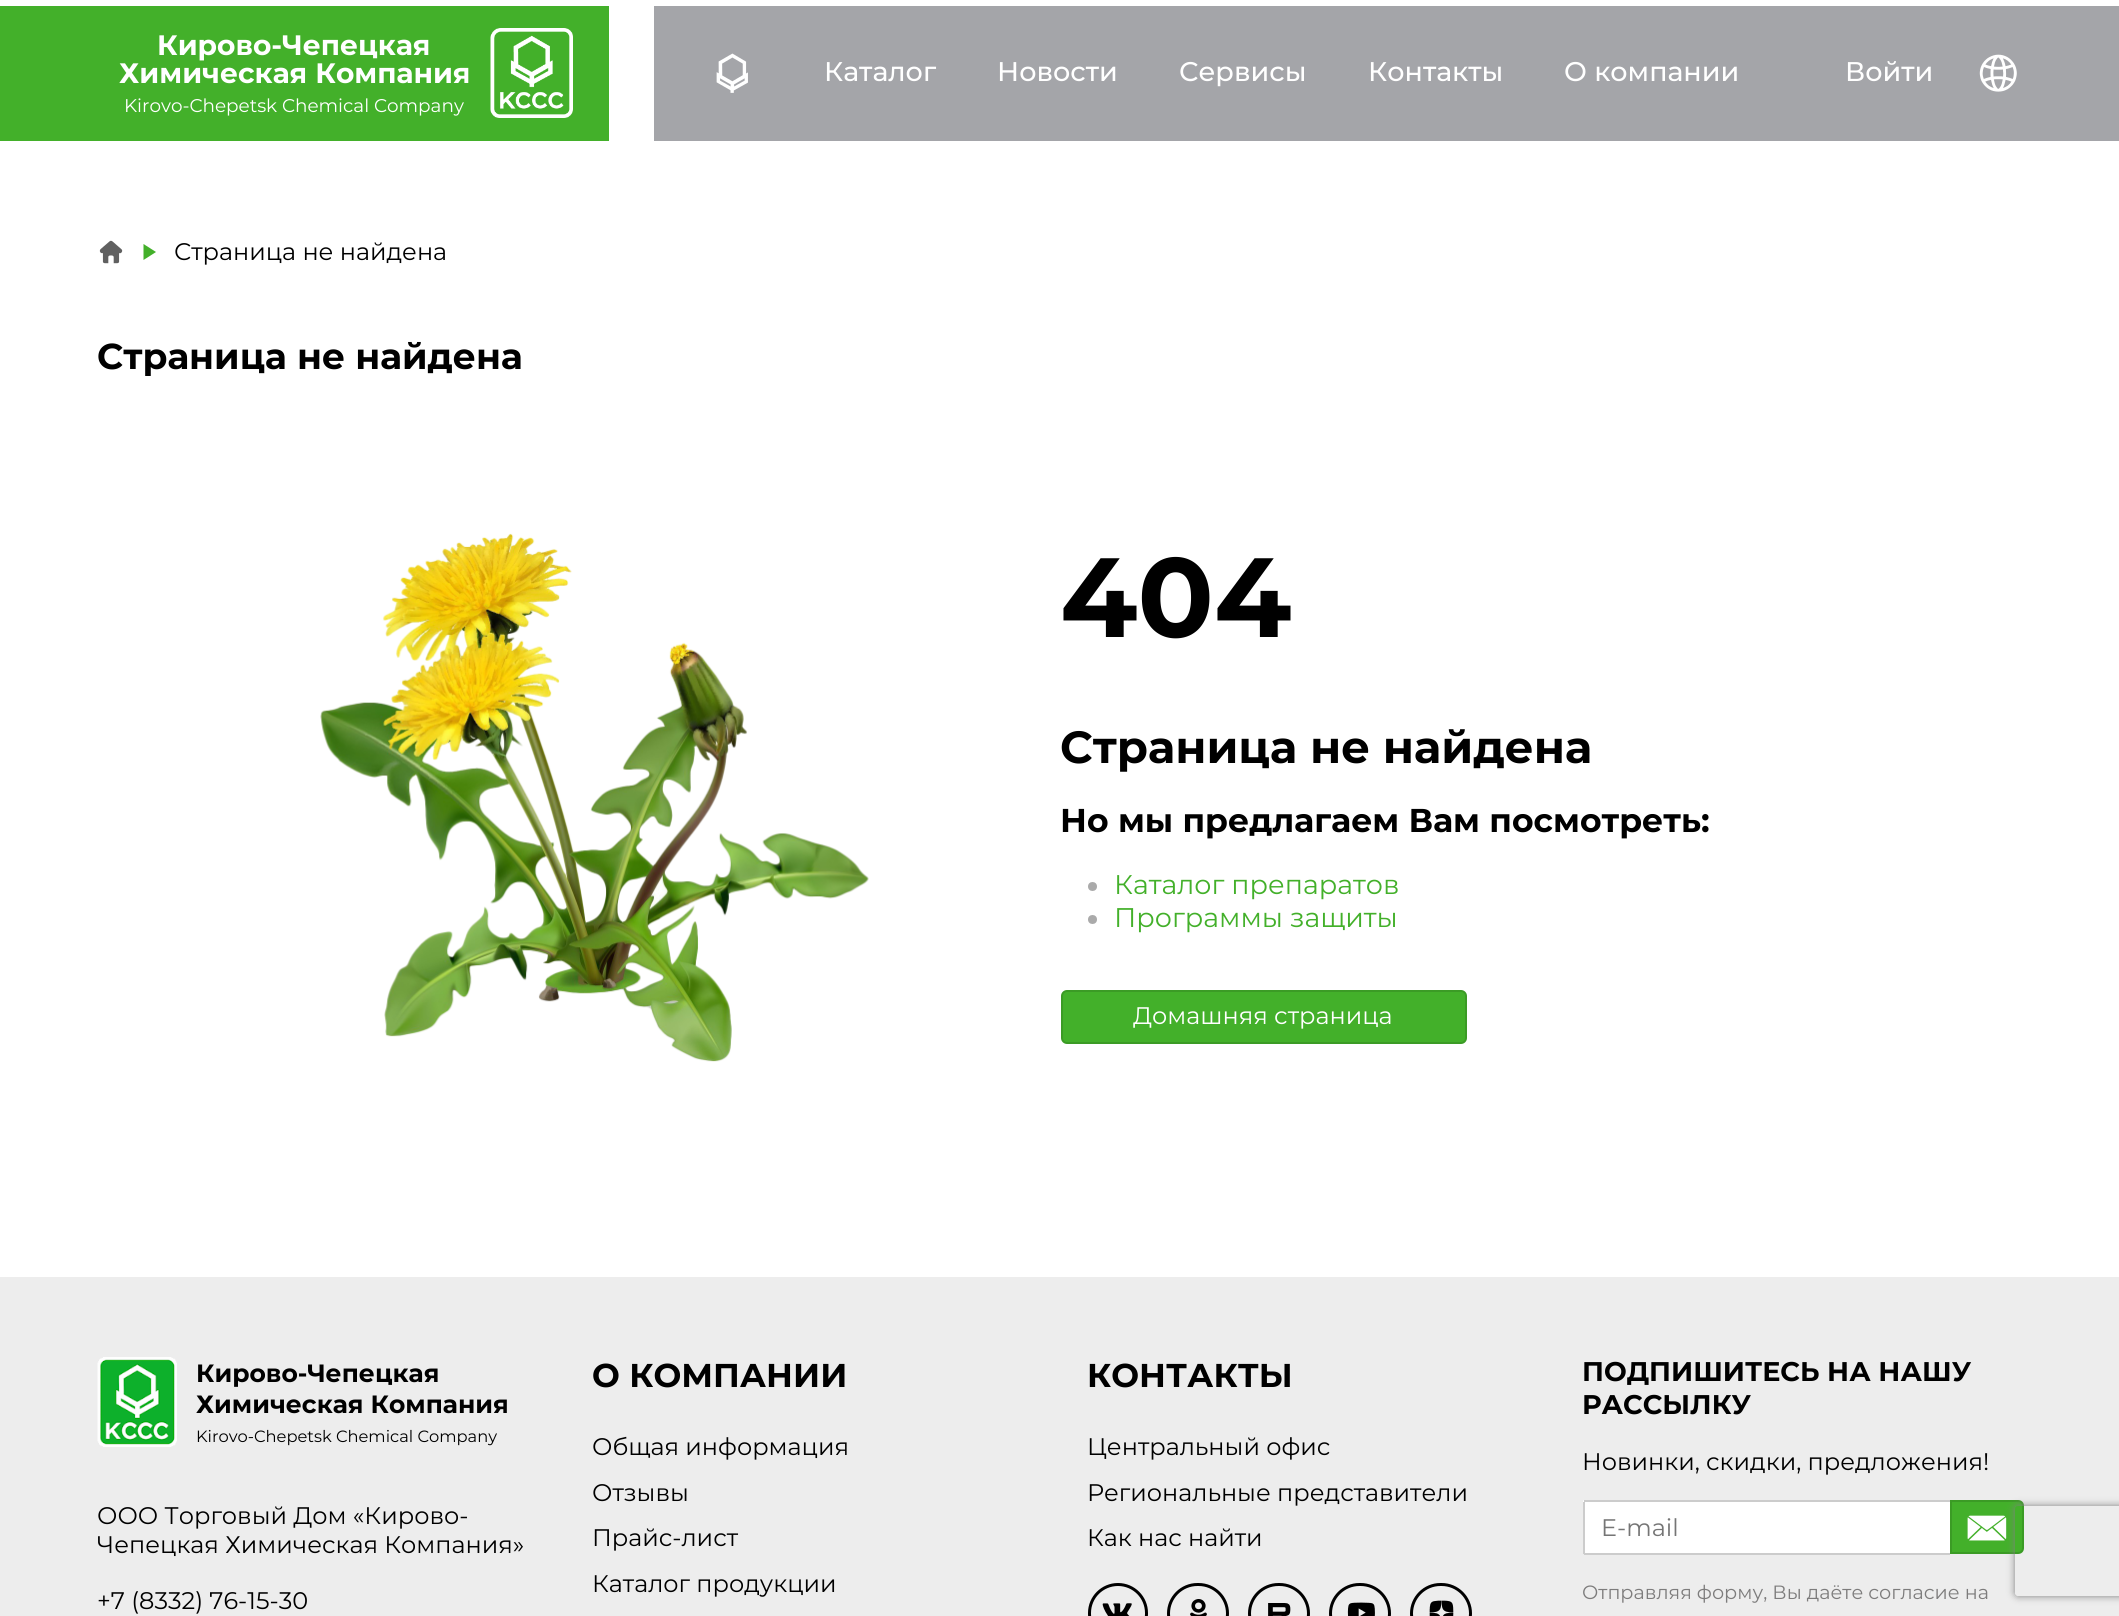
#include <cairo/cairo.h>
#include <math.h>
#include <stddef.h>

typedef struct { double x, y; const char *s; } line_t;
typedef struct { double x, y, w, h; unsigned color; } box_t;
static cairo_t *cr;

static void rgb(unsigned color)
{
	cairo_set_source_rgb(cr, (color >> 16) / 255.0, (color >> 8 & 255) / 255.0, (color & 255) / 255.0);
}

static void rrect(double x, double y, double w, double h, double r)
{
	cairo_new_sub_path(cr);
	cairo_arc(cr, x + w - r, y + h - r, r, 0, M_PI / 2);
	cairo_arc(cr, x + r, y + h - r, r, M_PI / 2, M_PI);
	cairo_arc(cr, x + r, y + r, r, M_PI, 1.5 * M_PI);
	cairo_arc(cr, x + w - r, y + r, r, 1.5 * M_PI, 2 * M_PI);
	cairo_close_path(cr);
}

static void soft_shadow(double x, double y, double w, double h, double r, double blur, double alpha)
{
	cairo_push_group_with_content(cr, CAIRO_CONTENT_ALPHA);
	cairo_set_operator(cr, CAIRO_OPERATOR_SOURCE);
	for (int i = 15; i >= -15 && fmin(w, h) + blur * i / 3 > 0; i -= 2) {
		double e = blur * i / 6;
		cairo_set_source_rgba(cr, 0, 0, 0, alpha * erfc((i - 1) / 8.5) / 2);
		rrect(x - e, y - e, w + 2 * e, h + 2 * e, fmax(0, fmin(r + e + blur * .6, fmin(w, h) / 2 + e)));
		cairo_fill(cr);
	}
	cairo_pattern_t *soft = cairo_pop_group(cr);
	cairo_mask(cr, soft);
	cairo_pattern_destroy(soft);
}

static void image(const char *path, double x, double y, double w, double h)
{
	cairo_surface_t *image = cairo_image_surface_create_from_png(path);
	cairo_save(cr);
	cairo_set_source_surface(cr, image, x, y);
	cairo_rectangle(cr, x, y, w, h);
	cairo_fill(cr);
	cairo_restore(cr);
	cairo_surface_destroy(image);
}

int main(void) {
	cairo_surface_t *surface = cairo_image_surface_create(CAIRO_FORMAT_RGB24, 2119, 1616);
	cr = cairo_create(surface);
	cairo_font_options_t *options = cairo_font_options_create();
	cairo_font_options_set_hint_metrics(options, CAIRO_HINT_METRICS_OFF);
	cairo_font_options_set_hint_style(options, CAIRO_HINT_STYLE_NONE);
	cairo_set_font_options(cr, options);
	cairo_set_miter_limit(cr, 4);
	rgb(0xffffff);
	cairo_paint(cr);
	rgb(0x43b02a);
	cairo_rectangle(cr, 0, 6, 609, 135);
	cairo_fill(cr);
	rgb(0xa4a5a9);
	cairo_rectangle(cr, 654, 6, 1465, 135);
	cairo_fill(cr);
	image("img/1.png", 490, 28, 83, 90);
	image("img/2.png", 716, 53, 32, 40);
	image("img/3.png", 1979, 54, 38, 38);
	image("img/4.png", 99, 240, 24, 24);
	rgb(0x43b02a);
	cairo_new_path(cr);
	cairo_move_to(cr, 156, 252);
	cairo_line_to(cr, 143.5, 260);
	cairo_line_to(cr, 143.5, 244);
	cairo_close_path(cr);
	cairo_fill(cr);
	image("img/5.png", 320, 533, 549, 529);
	rgb(0xaaaaaa);
	cairo_arc(cr, 1092.5, 886.5, 4.5, 0, 2 * M_PI);
	cairo_fill(cr);
	cairo_arc(cr, 1092.5, 919.5, 4.5, 0, 2 * M_PI);
	cairo_fill(cr);
	rgb(0x43b02a);
	rrect(1062, 991, 404, 52, 5);
	cairo_fill_preserve(cr);
	rgb(0x3b9b25);
	cairo_stroke(cr);
	rgb(0xededed);
	cairo_rectangle(cr, 0, 1277, 2119, 339);
	cairo_fill(cr);
	image("img/6.png", 97, 1357, 80, 90);
	rrect(1089.5, 1584.5, 57, 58, 28.5);
	rgb(0x000000);
	cairo_set_line_width(cr, 3);
	cairo_stroke(cr);
	image("img/7.png", 1102, 1603, 30, 13);
	rrect(1168.5, 1584.5, 59, 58, 29);
	cairo_stroke(cr);
	image("img/8.png", 1190, 1599, 17, 17);
	rrect(1249.5, 1584.5, 59, 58, 29);
	cairo_stroke(cr);
	image("img/9.png", 1268, 1603, 23, 13);
	rrect(1330.5, 1584.5, 59, 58, 29);
	cairo_stroke(cr);
	image("img/10.png", 1347, 1602, 28, 14);
	rrect(1411.5, 1584.5, 59, 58, 29);
	cairo_stroke(cr);
	image("img/11.png", 1429, 1600, 25, 16);
	rgb(0xffffff);
	cairo_new_path(cr);
	cairo_move_to(cr, 1584.5, 1500);
	cairo_line_to(cr, 1950, 1500);
	cairo_line_to(cr, 1950, 1554);
	cairo_line_to(cr, 1584.5, 1554);
	cairo_curve_to(cr, 1583.5, 1554, 1583, 1553.5, 1583, 1552.5);
	cairo_line_to(cr, 1583, 1501.5);
	cairo_curve_to(cr, 1583, 1500.5, 1583.5, 1500, 1584.5, 1500);
	cairo_close_path(cr);
	cairo_fill(cr);
	{
		static const box_t items[] = {
			{1584, 1500, 366, 2, 0xcccccc},
			{1584, 1553, 366, 2, 0xcccccc},
			{1583, 1502, 2, 52, 0xcccccc},
		};
		for (size_t i = 0; i < sizeof items / sizeof *items; i++) {
			rgb(items[i].color);
			cairo_rectangle(cr, items[i].x, items[i].y, items[i].w, items[i].h);
			cairo_fill(cr);
		}
	}
	rgb(0x43b02a);
	cairo_new_path(cr);
	cairo_move_to(cr, 1951, 1501);
	cairo_line_to(cr, 2018, 1501);
	cairo_curve_to(cr, 2021, 1501, 2023, 1503, 2023, 1506);
	cairo_line_to(cr, 2023, 1548);
	cairo_curve_to(cr, 2023, 1551, 2021, 1553, 2018, 1553);
	cairo_line_to(cr, 1951, 1553);
	cairo_close_path(cr);
	cairo_fill_preserve(cr);
	rgb(0x3b9b25);
	cairo_set_line_width(cr, 2);
	cairo_stroke(cr);
	image("img/12.png", 1967, 1515, 40, 26);
	cairo_save(cr);
	cairo_set_fill_rule(cr, CAIRO_FILL_RULE_EVEN_ODD);
	cairo_new_path(cr);
	cairo_move_to(cr, 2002, 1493);
	cairo_line_to(cr, 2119, 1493);
	cairo_line_to(cr, 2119, 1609);
	cairo_line_to(cr, 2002, 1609);
	cairo_close_path(cr);
	cairo_move_to(cr, 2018, 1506);
	cairo_line_to(cr, 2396, 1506);
	cairo_curve_to(cr, 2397.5, 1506, 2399, 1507.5, 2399, 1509);
	cairo_line_to(cr, 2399, 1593);
	cairo_curve_to(cr, 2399, 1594.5, 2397.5, 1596, 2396, 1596);
	cairo_line_to(cr, 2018, 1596);
	cairo_curve_to(cr, 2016.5, 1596, 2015, 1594.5, 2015, 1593);
	cairo_line_to(cr, 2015, 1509);
	cairo_curve_to(cr, 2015, 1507.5, 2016.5, 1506, 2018, 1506);
	cairo_close_path(cr);
	cairo_clip(cr);
	rgb(0x808080);
	soft_shadow(2015, 1506, 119, 90, 3, 4, 1);
	cairo_restore(cr);
	cairo_select_font_face(cr, "Montserrat", CAIRO_FONT_SLANT_NORMAL, CAIRO_FONT_WEIGHT_BOLD);
	cairo_set_font_size(cr, 28.1);
	rgb(0xffffff);
	cairo_move_to(cr, 157, 55);
	cairo_show_text(cr, "Кирово-Чепецкая");
	cairo_move_to(cr, 119, 83);
	cairo_show_text(cr, "Химическая Компания");
	cairo_select_font_face(cr, "Montserrat", CAIRO_FONT_SLANT_NORMAL, CAIRO_FONT_WEIGHT_NORMAL);
	cairo_set_font_size(cr, 18.4);
	cairo_move_to(cr, 124, 112);
	cairo_show_text(cr, "Kirovo-Chepetsk Chemical Company");
	cairo_select_font_face(cr, "Montserrat Medium", CAIRO_FONT_SLANT_NORMAL, CAIRO_FONT_WEIGHT_NORMAL);
	cairo_set_font_size(cr, 27);
	{
		static const line_t items[] = {
			{824, 81, "Каталог"},
			{997, 81, "Новости"},
			{1179, 81, "Сервисы"},
			{1368, 81, "Контакты"},
			{1564, 81, "О компании"},
			{1845, 81, "Войти"},
		};
		for (size_t i = 0; i < sizeof items / sizeof *items; i++) {
			cairo_move_to(cr, items[i].x, items[i].y);
			cairo_show_text(cr, items[i].s);
		}
	}
	cairo_select_font_face(cr, "Montserrat", CAIRO_FONT_SLANT_NORMAL, CAIRO_FONT_WEIGHT_NORMAL);
	cairo_set_font_size(cr, 24);
	rgb(0x000000);
	cairo_move_to(cr, 174, 260);
	cairo_show_text(cr, "Страница не найдена");
	cairo_select_font_face(cr, "Montserrat", CAIRO_FONT_SLANT_NORMAL, CAIRO_FONT_WEIGHT_BOLD);
	cairo_set_font_size(cr, 36);
	cairo_move_to(cr, 97, 369);
	cairo_show_text(cr, "Страница не найдена");
	cairo_set_font_size(cr, 112.5);
	cairo_move_to(cr, 1060, 637);
	cairo_show_text(cr, "404");
	cairo_set_font_size(cr, 45);
	cairo_move_to(cr, 1060, 763);
	cairo_show_text(cr, "Страница не найдена");
	cairo_set_font_size(cr, 33);
	cairo_move_to(cr, 1060, 832);
	cairo_show_text(cr, "Но мы предлагаем Вам посмотреть:");
	cairo_select_font_face(cr, "Montserrat", CAIRO_FONT_SLANT_NORMAL, CAIRO_FONT_WEIGHT_NORMAL);
	cairo_set_font_size(cr, 27);
	rgb(0x43b02a);
	cairo_move_to(cr, 1114, 894);
	cairo_show_text(cr, "Каталог препаратов");
	cairo_move_to(cr, 1114, 927);
	cairo_show_text(cr, "Программы защиты");
	cairo_set_font_size(cr, 24);
	rgb(0xffffff);
	cairo_move_to(cr, 1133, 1024);
	cairo_show_text(cr, "Домашняя страница");
	cairo_select_font_face(cr, "Montserrat", CAIRO_FONT_SLANT_NORMAL, CAIRO_FONT_WEIGHT_BOLD);
	cairo_set_font_size(cr, 25);
	rgb(0x000000);
	cairo_move_to(cr, 196, 1382);
	cairo_show_text(cr, "Кирово-Чепецкая");
	cairo_move_to(cr, 196, 1413);
	cairo_show_text(cr, "Химическая Компания");
	cairo_select_font_face(cr, "Montserrat", CAIRO_FONT_SLANT_NORMAL, CAIRO_FONT_WEIGHT_NORMAL);
	cairo_set_font_size(cr, 16.3);
	cairo_move_to(cr, 196, 1442);
	cairo_show_text(cr, "Kirovo-Chepetsk Chemical Company");
	cairo_set_font_size(cr, 24);
	{
		static const line_t items[] = {
			{97, 1524, "ООО Торговый Дом «Кирово-"},
			{97, 1553, "Чепецкая Химическая Компания»"},
			{97, 1609, "+7 (8332) 76-15-30"},
		};
		for (size_t i = 0; i < sizeof items / sizeof *items; i++) {
			cairo_move_to(cr, items[i].x, items[i].y);
			cairo_show_text(cr, items[i].s);
		}
	}
	cairo_select_font_face(cr, "Montserrat", CAIRO_FONT_SLANT_NORMAL, CAIRO_FONT_WEIGHT_BOLD);
	cairo_set_font_size(cr, 33);
	cairo_move_to(cr, 592, 1387);
	cairo_show_text(cr, "О КОМПАНИИ");
	cairo_select_font_face(cr, "Montserrat", CAIRO_FONT_SLANT_NORMAL, CAIRO_FONT_WEIGHT_NORMAL);
	cairo_set_font_size(cr, 24);
	{
		static const line_t items[] = {
			{592, 1455, "Общая информация"},
			{592, 1501, "Отзывы"},
			{592, 1546, "Прайс-лист"},
			{592, 1592, "Каталог продукции"},
		};
		for (size_t i = 0; i < sizeof items / sizeof *items; i++) {
			cairo_move_to(cr, items[i].x, items[i].y);
			cairo_show_text(cr, items[i].s);
		}
	}
	cairo_select_font_face(cr, "Montserrat", CAIRO_FONT_SLANT_NORMAL, CAIRO_FONT_WEIGHT_BOLD);
	cairo_set_font_size(cr, 33);
	cairo_move_to(cr, 1087, 1387);
	cairo_show_text(cr, "КОНТАКТЫ");
	cairo_select_font_face(cr, "Montserrat", CAIRO_FONT_SLANT_NORMAL, CAIRO_FONT_WEIGHT_NORMAL);
	cairo_set_font_size(cr, 24);
	{
		static const line_t items[] = {
			{1087, 1455, "Центральный офис"},
			{1087, 1501, "Региональные представители"},
			{1087, 1546, "Как нас найти"},
		};
		for (size_t i = 0; i < sizeof items / sizeof *items; i++) {
			cairo_move_to(cr, items[i].x, items[i].y);
			cairo_show_text(cr, items[i].s);
		}
	}
	cairo_select_font_face(cr, "Montserrat", CAIRO_FONT_SLANT_NORMAL, CAIRO_FONT_WEIGHT_BOLD);
	cairo_set_font_size(cr, 27);
	cairo_move_to(cr, 1582, 1381);
	cairo_show_text(cr, "ПОДПИШИТЕСЬ НА НАШУ");
	cairo_move_to(cr, 1582, 1414);
	cairo_show_text(cr, "РАССЫЛКУ");
	cairo_select_font_face(cr, "Montserrat", CAIRO_FONT_SLANT_NORMAL, CAIRO_FONT_WEIGHT_NORMAL);
	cairo_set_font_size(cr, 24);
	cairo_move_to(cr, 1582, 1470);
	cairo_show_text(cr, "Новинки, скидки, предложения!");
	rgb(0x757575);
	cairo_move_to(cr, 1601, 1536);
	cairo_show_text(cr, "E-mail");
	cairo_set_font_size(cr, 19.2);
	rgb(0x7d7c7c);
	cairo_move_to(cr, 1582, 1599);
	cairo_show_text(cr, "Отправляя форму, Вы даёте согласие на");
	cairo_surface_write_to_png(surface, "page.png");
	cairo_font_options_destroy(options);
	cairo_destroy(cr);
	cairo_surface_destroy(surface);
	return 0;
}
